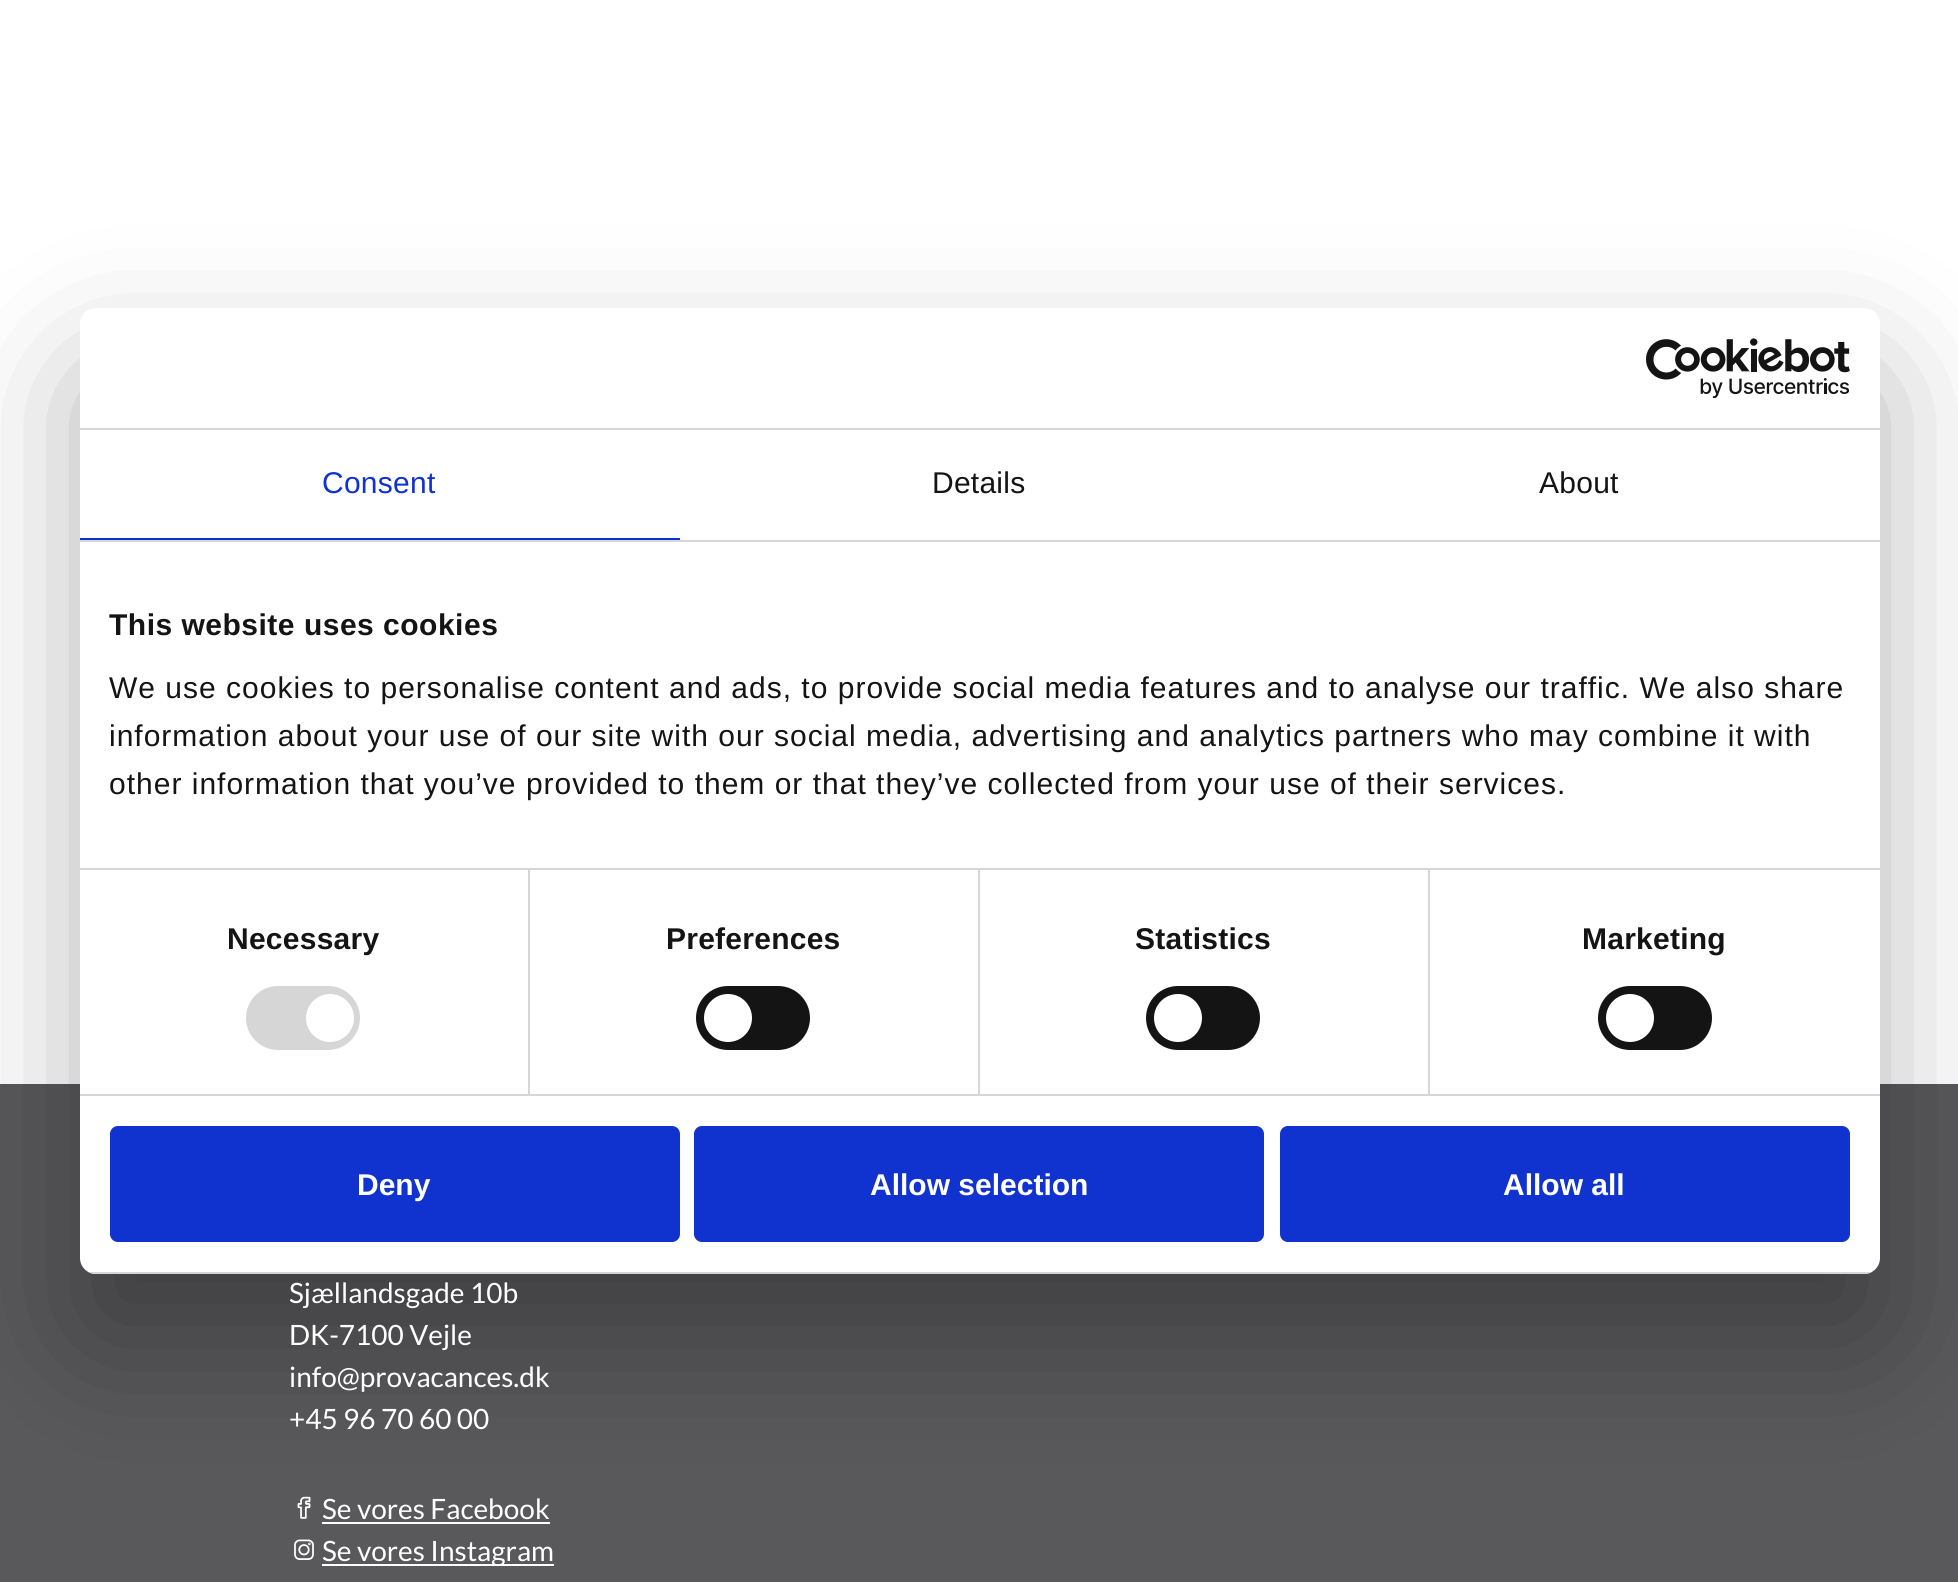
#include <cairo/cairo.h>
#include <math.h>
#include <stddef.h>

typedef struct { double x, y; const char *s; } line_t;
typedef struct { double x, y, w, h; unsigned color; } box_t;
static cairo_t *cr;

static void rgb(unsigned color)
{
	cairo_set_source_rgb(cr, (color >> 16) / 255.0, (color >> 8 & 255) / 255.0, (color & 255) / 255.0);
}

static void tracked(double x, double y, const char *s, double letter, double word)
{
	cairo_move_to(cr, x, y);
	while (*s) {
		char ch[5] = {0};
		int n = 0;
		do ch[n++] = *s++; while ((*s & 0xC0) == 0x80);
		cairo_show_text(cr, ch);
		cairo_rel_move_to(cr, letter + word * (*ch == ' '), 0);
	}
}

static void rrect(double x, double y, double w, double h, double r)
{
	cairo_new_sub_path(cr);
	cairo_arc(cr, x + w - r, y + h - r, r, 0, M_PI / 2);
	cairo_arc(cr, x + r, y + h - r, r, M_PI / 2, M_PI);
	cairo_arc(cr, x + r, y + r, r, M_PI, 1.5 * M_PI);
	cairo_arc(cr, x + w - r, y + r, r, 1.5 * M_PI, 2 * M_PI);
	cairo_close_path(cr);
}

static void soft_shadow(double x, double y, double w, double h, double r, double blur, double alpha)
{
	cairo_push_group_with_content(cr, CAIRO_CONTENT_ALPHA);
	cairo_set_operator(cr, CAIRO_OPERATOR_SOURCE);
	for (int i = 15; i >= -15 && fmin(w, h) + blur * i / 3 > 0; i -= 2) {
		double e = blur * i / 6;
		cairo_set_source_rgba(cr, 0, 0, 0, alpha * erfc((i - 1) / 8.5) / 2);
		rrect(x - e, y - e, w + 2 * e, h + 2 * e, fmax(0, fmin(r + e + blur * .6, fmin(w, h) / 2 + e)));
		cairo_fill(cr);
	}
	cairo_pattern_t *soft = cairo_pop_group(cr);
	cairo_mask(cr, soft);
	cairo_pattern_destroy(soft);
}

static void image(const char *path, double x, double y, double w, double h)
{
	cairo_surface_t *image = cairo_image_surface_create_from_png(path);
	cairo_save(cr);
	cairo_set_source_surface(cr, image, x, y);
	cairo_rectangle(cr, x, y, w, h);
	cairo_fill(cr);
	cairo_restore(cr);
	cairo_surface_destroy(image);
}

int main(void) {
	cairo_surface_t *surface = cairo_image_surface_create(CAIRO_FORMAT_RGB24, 1958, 1582);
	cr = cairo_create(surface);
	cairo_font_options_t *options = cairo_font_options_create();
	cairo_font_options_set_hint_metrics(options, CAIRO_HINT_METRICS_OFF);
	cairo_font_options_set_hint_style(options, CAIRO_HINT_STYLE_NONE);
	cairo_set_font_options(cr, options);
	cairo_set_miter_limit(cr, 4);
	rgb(0xffffff);
	cairo_paint(cr);
	rgb(0x59595c);
	cairo_rectangle(cr, 0, 1084, 1958, 498);
	cairo_fill(cr);
	image("img/2.png", 297, 1496, 14, 23);
	rgb(0xffffff);
	cairo_rectangle(cr, 322, 1522, 228, 2);
	cairo_fill(cr);
	image("img/3.png", 294, 1539, 20, 21);
	rgb(0x000000);
	soft_shadow(80, 372, 1800, 966, 16, 68, 0.3);
	rgb(0xffffff);
	rrect(80, 308, 1800, 966, 16);
	cairo_fill(cr);
	rgb(0xd6d6d6);
	cairo_rectangle(cr, 80, 428, 1800, 2);
	cairo_fill(cr);
	image("img/1.png", 1646, 338, 204, 60);
	{
		static const box_t items[] = {
			{80, 540, 1800, 2, 0xd6d6d6},
			{80, 538, 600, 2, 0x1032cf},
			{80, 868, 1800, 2, 0xd6d6d6},
			{80, 1094, 1800, 2, 0xd6d6d6},
			{528, 870, 2, 224, 0xd6d6d6},
		};
		for (size_t i = 0; i < sizeof items / sizeof *items; i++) {
			rgb(items[i].color);
			cairo_rectangle(cr, items[i].x, items[i].y, items[i].w, items[i].h);
			cairo_fill(cr);
		}
	}
	rrect(246, 986, 114, 64, 32);
	cairo_fill(cr);
	rgb(0xffffff);
	cairo_arc(cr, 330, 1018, 24, 0, 2 * M_PI);
	cairo_fill(cr);
	rgb(0xd6d6d6);
	cairo_rectangle(cr, 978, 870, 2, 224);
	cairo_fill(cr);
	rgb(0x141414);
	rrect(696, 986, 114, 64, 32);
	cairo_fill(cr);
	rgb(0xffffff);
	cairo_arc(cr, 728, 1018, 24, 0, 2 * M_PI);
	cairo_fill(cr);
	rgb(0xd6d6d6);
	cairo_rectangle(cr, 1428, 870, 2, 224);
	cairo_fill(cr);
	rgb(0x141414);
	rrect(1146, 986, 114, 64, 32);
	cairo_fill(cr);
	rgb(0xffffff);
	cairo_arc(cr, 1178, 1018, 24, 0, 2 * M_PI);
	cairo_fill(cr);
	rgb(0x141414);
	rrect(1598, 986, 114, 64, 32);
	cairo_fill(cr);
	rgb(0xffffff);
	cairo_arc(cr, 1630, 1018, 24, 0, 2 * M_PI);
	cairo_fill(cr);
	cairo_save(cr);
	rrect(80, 308, 1800, 966, 16);
	cairo_clip(cr);
	rgb(0xd6d6d6);
	cairo_rectangle(cr, 80, 1272, 1800, 2);
	cairo_fill(cr);
	cairo_restore(cr);
	rgb(0x1032cf);
	rrect(112, 1128, 566, 112, 6);
	cairo_fill_preserve(cr);
	cairo_set_line_width(cr, 4);
	cairo_stroke(cr);
	rrect(696, 1128, 566, 112, 6);
	cairo_fill_preserve(cr);
	cairo_stroke(cr);
	rrect(1282, 1128, 566, 112, 6);
	cairo_fill_preserve(cr);
	cairo_stroke(cr);
	rgb(0xffffff);
	cairo_rectangle(cr, 322, 1564, 232, 2);
	cairo_fill(cr);
	cairo_select_font_face(cr, "Liberation Sans", CAIRO_FONT_SLANT_NORMAL, CAIRO_FONT_WEIGHT_NORMAL);
	cairo_set_font_size(cr, 30);
	rgb(0x1032cf);
	tracked(322, 493, "Consent", 0.25, 0);
	rgb(0x141414);
	tracked(932, 493, "Details", 0.25, 0);
	tracked(1539, 493, "About", 0.25, 0);
	cairo_select_font_face(cr, "Liberation Sans", CAIRO_FONT_SLANT_NORMAL, CAIRO_FONT_WEIGHT_BOLD);
	tracked(109, 635, "This website uses cookies", 0.5, 0);
	cairo_select_font_face(cr, "Liberation Sans", CAIRO_FONT_SLANT_NORMAL, CAIRO_FONT_WEIGHT_NORMAL);
	{
		static const line_t items[] = {
			{109, 698, "We use cookies to personalise content and ads, to provide social media features and to analyse our traffic. We also share"},
			{109, 746, "information about your use of our site with our social media, advertising and analytics partners who may combine it with"},
			{109, 794, "other information that you’ve provided to them or that they’ve collected from your use of their services."},
		};
		for (size_t i = 0; i < sizeof items / sizeof *items; i++) {
			tracked(items[i].x, items[i].y, items[i].s, 1, 0);
		}
	}
	cairo_select_font_face(cr, "Liberation Sans", CAIRO_FONT_SLANT_NORMAL, CAIRO_FONT_WEIGHT_BOLD);
	{
		static const line_t items[] = {
			{227, 949, "Necessary"},
			{666, 949, "Preferences"},
			{1135, 949, "Statistics"},
			{1582, 949, "Marketing"},
		};
		for (size_t i = 0; i < sizeof items / sizeof *items; i++) {
			tracked(items[i].x, items[i].y, items[i].s, 0.25, 0);
		}
	}
	rgb(0xffffff);
	{
		static const line_t items[] = {
			{357, 1195, "Deny"},
			{870, 1195, "Allow selection"},
			{1503, 1195, "Allow all"},
		};
		for (size_t i = 0; i < sizeof items / sizeof *items; i++) {
			cairo_move_to(cr, items[i].x, items[i].y);
			cairo_show_text(cr, items[i].s);
		}
	}
	cairo_select_font_face(cr, "Lato", CAIRO_FONT_SLANT_NORMAL, CAIRO_FONT_WEIGHT_NORMAL);
	cairo_set_font_size(cr, 28);
	{
		static const line_t items[] = {
			{289, 1303, "Sjællandsgade 10b"},
			{289, 1345, "DK-7100 Vejle"},
			{289, 1387, "info@provacances.dk"},
			{289, 1429, "+45 96 70 60 00"},
			{322, 1519, "Se vores Facebook"},
			{322, 1561, "Se vores Instagram"},
		};
		for (size_t i = 0; i < sizeof items / sizeof *items; i++) {
			cairo_move_to(cr, items[i].x, items[i].y);
			cairo_show_text(cr, items[i].s);
		}
	}
	cairo_surface_write_to_png(surface, "page.png");
	cairo_font_options_destroy(options);
	cairo_destroy(cr);
	cairo_surface_destroy(surface);
	return 0;
}
